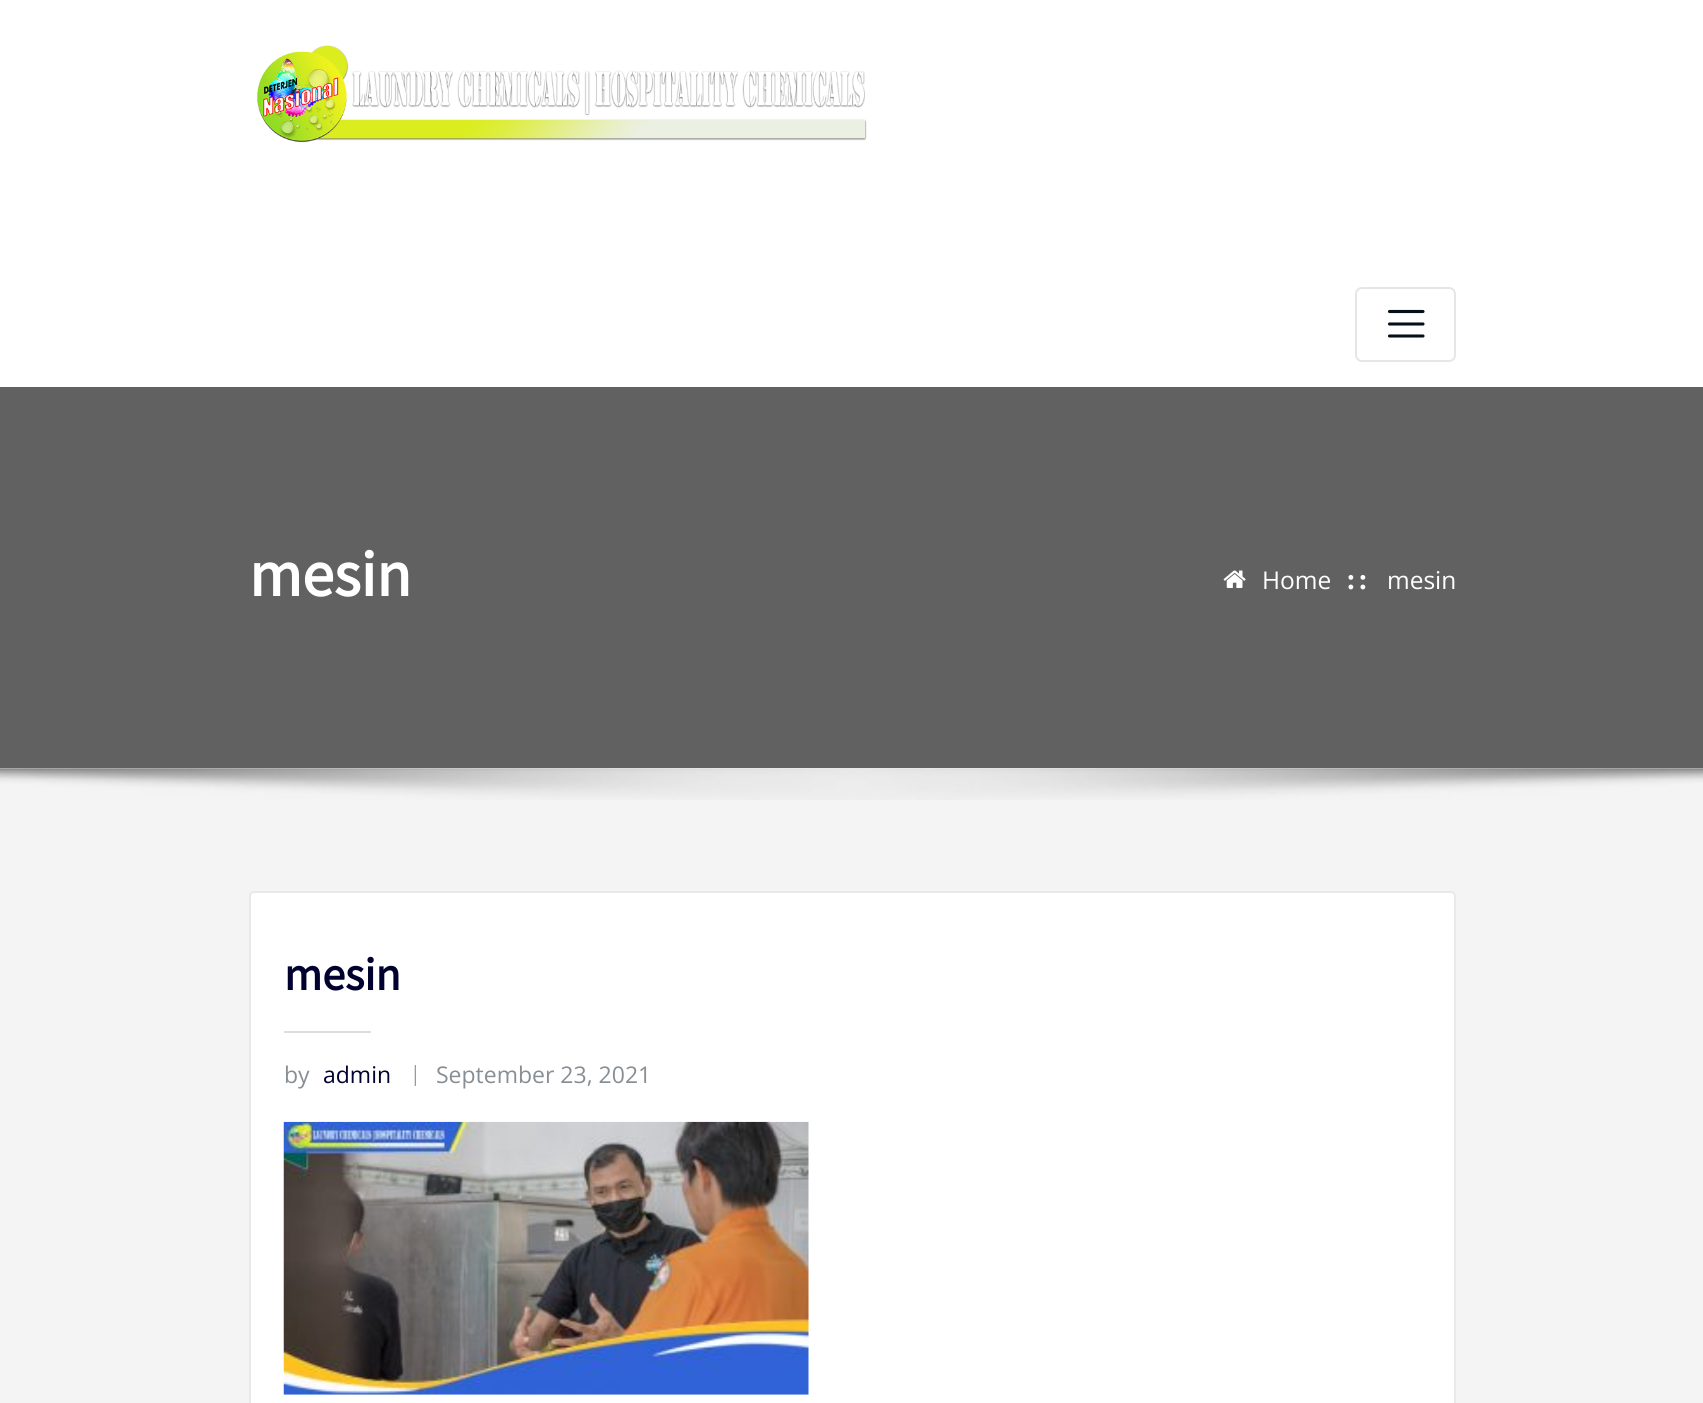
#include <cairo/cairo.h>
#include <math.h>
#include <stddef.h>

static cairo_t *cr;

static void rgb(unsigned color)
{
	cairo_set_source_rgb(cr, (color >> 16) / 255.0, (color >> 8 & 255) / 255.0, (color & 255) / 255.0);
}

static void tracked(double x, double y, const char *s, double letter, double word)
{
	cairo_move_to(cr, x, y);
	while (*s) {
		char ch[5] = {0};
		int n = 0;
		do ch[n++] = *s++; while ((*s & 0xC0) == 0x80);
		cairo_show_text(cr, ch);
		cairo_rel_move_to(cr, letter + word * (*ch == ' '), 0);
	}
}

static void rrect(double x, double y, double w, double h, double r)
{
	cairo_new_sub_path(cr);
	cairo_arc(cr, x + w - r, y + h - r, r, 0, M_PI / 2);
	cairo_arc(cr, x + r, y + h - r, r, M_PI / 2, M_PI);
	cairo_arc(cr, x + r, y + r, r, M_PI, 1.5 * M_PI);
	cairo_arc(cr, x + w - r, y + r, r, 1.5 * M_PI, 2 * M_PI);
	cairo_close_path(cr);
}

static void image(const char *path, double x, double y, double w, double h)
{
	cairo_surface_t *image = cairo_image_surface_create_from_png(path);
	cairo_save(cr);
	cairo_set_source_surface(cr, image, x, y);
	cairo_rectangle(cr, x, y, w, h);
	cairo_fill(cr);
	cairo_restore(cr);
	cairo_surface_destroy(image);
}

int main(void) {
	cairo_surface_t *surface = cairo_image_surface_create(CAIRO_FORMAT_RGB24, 1703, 1403);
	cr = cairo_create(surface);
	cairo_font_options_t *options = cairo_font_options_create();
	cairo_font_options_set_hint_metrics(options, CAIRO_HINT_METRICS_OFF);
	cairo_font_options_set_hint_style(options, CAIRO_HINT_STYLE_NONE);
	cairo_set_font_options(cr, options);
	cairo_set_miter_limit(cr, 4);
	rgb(0xf4f4f4);
	cairo_paint(cr);
	rgb(0xffffff);
	cairo_rectangle(cr, 0, 0, 1703, 387);
	cairo_fill(cr);
	image("img/1.png", 256, 45, 611, 98);
	rrect(1356, 288, 99, 73, 6);
	rgb(0xe6e6e6);
	cairo_stroke(cr);
	cairo_new_path(cr);
	cairo_move_to(cr, 1389.5, 311.5);
	cairo_line_to(cr, 1423, 311.5);
	cairo_move_to(cr, 1389.5, 324);
	cairo_line_to(cr, 1423, 324);
	cairo_move_to(cr, 1389.5, 336);
	cairo_line_to(cr, 1423, 336);
	rgb(0x061018);
	cairo_set_line_width(cr, 3.1);
	cairo_set_line_cap(cr, CAIRO_LINE_CAP_ROUND);
	cairo_stroke(cr);
	rgb(0x616161);
	cairo_rectangle(cr, 0, 387, 1703, 381);
	cairo_fill(cr);
	image("img/2.png", 1223, 570, 23, 18);
	image("img/3.png", 0, 768, 1703, 32);
	rgb(0xffffff);
	rrect(250, 892, 1205, 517, 4);
	cairo_fill_preserve(cr);
	rgb(0xe9e9e9);
	cairo_set_line_width(cr, 2);
	cairo_set_line_cap(cr, CAIRO_LINE_CAP_BUTT);
	cairo_stroke(cr);
	rgb(0xdddddd);
	cairo_rectangle(cr, 284, 1031, 87, 2);
	cairo_fill(cr);
	image("img/4.png", 283, 1121, 526, 274);
	cairo_select_font_face(cr, "Source Sans Pro", CAIRO_FONT_SLANT_NORMAL, CAIRO_FONT_WEIGHT_BOLD);
	cairo_set_font_size(cr, 64);
	rgb(0xffffff);
	cairo_move_to(cr, 249, 596);
	cairo_show_text(cr, "mesin");
	cairo_select_font_face(cr, "Open Sans", CAIRO_FONT_SLANT_NORMAL, CAIRO_FONT_WEIGHT_NORMAL);
	cairo_set_font_size(cr, 24.5);
	cairo_move_to(cr, 1262, 589);
	cairo_show_text(cr, "Home");
	cairo_select_font_face(cr, "Liberation Serif", CAIRO_FONT_SLANT_NORMAL, CAIRO_FONT_WEIGHT_BOLD);
	cairo_set_font_size(cr, 30);
	tracked(1346, 589, "::", 2, 0);
	cairo_select_font_face(cr, "Open Sans", CAIRO_FONT_SLANT_NORMAL, CAIRO_FONT_WEIGHT_NORMAL);
	cairo_set_font_size(cr, 24.5);
	cairo_move_to(cr, 1387, 589);
	cairo_show_text(cr, "mesin");
	cairo_select_font_face(cr, "Source Sans Pro", CAIRO_FONT_SLANT_NORMAL, CAIRO_FONT_WEIGHT_BOLD);
	cairo_set_font_size(cr, 46);
	rgb(0x01012f);
	cairo_move_to(cr, 284, 990);
	cairo_show_text(cr, "mesin");
	cairo_select_font_face(cr, "Open Sans", CAIRO_FONT_SLANT_NORMAL, CAIRO_FONT_WEIGHT_NORMAL);
	cairo_set_font_size(cr, 23);
	rgb(0x878e94);
	cairo_move_to(cr, 284, 1083);
	cairo_show_text(cr, "by");
	rgb(0x01012f);
	cairo_move_to(cr, 323, 1083);
	cairo_show_text(cr, "admin");
	cairo_select_font_face(cr, "Liberation Serif", CAIRO_FONT_SLANT_NORMAL, CAIRO_FONT_WEIGHT_NORMAL);
	rgb(0x878e94);
	cairo_move_to(cr, 413, 1081);
	cairo_show_text(cr, "|");
	cairo_select_font_face(cr, "Open Sans", CAIRO_FONT_SLANT_NORMAL, CAIRO_FONT_WEIGHT_NORMAL);
	cairo_move_to(cr, 436, 1083);
	cairo_show_text(cr, "September 23, 2021");
	cairo_surface_write_to_png(surface, "page.png");
	cairo_font_options_destroy(options);
	cairo_destroy(cr);
	cairo_surface_destroy(surface);
	return 0;
}
